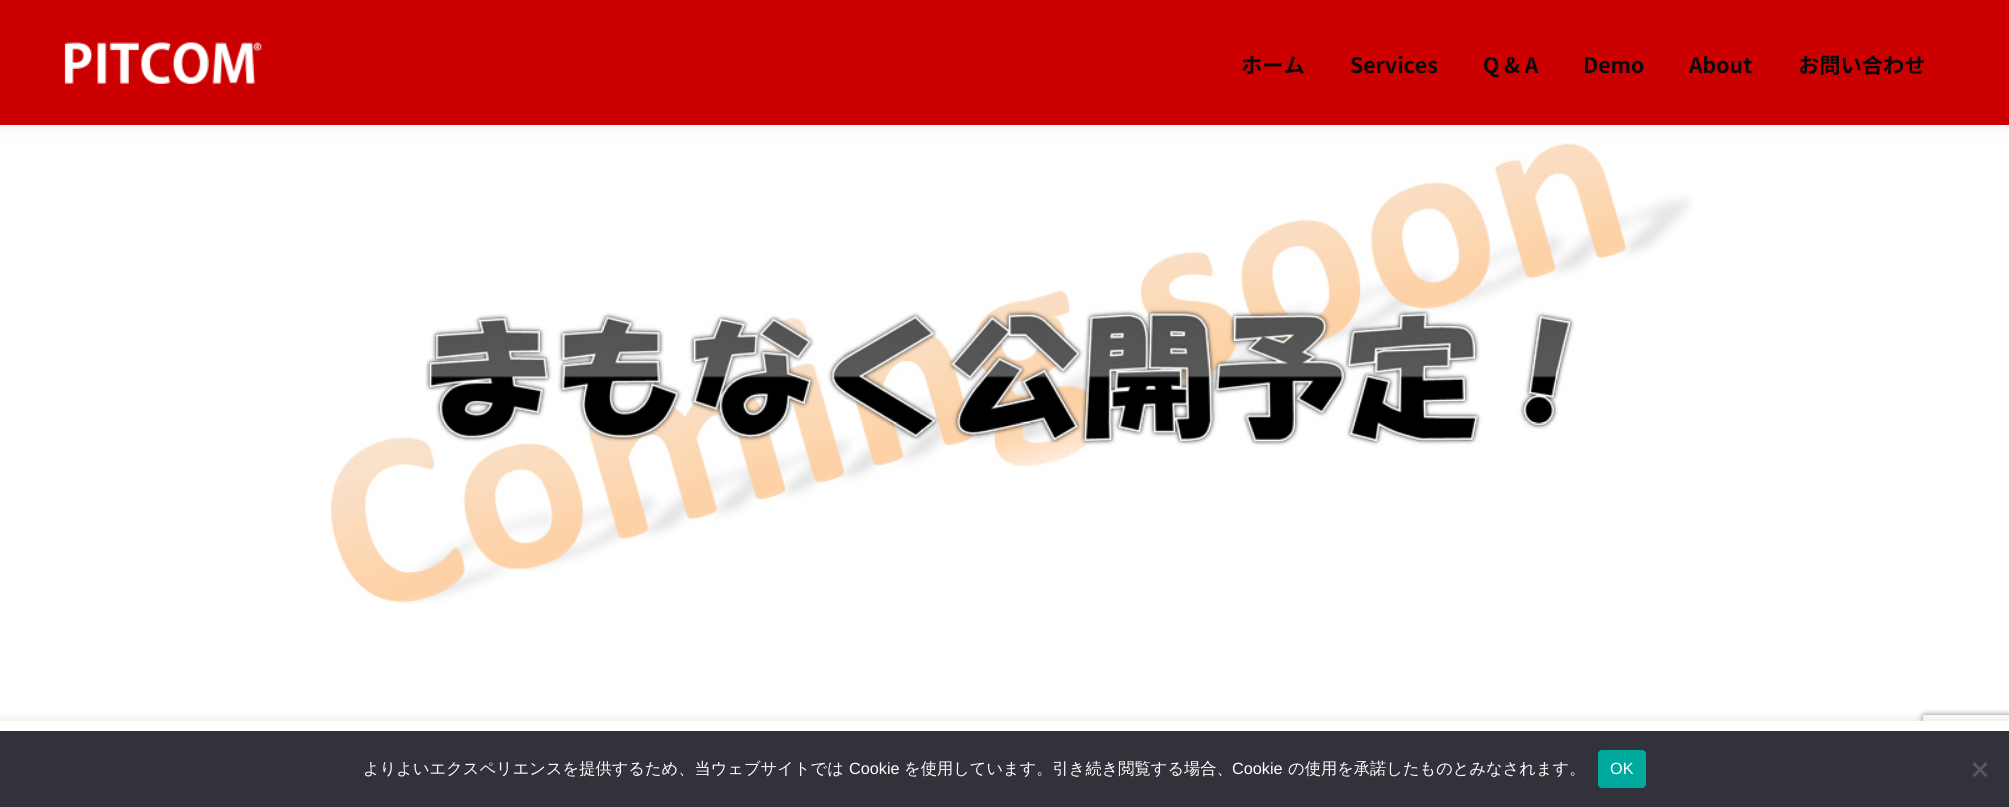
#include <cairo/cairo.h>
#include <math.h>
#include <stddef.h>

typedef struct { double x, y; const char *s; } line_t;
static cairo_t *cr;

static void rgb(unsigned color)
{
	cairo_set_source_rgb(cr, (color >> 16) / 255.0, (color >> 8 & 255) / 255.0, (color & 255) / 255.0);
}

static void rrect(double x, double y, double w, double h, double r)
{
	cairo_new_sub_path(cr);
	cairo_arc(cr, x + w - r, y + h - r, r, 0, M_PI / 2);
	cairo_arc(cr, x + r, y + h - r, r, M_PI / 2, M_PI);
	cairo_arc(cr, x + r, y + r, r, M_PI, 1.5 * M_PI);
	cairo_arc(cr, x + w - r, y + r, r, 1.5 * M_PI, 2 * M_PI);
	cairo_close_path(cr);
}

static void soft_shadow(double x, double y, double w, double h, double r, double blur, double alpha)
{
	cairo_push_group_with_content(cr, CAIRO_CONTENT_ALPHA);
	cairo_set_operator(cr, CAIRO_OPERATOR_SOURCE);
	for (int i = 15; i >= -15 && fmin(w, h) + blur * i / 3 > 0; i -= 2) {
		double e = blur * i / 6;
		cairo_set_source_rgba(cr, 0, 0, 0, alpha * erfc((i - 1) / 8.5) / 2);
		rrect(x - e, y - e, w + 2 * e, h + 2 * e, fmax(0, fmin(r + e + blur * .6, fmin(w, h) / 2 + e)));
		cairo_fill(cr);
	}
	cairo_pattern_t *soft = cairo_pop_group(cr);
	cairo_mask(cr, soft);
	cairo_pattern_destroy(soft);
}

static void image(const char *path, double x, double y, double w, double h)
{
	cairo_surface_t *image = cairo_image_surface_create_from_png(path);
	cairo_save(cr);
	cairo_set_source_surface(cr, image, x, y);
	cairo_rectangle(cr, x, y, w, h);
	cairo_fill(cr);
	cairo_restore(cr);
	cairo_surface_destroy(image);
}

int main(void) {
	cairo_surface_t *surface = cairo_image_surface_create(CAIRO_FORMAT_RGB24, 2009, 807);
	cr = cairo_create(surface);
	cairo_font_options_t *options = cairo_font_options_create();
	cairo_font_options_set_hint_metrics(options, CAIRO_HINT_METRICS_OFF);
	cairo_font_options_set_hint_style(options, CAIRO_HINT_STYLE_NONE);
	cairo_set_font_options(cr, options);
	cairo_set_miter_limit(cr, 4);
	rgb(0xffffff);
	cairo_paint(cr);
	image("img/2.png", 330, 143, 1363, 461);
	rgb(0x000000);
	soft_shadow(-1, -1, 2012, 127, 0, 9.5, 0.07);
	rgb(0xcc0000);
	cairo_rectangle(cr, 0, 0, 2009, 125);
	cairo_fill(cr);
	image("img/1.png", 64, 42, 198, 42);
	rgb(0xacabab);
	soft_shadow(0, 720, 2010, 86, 0, 6, 0.3);
	cairo_save(cr);
	cairo_set_fill_rule(cr, CAIRO_FILL_RULE_EVEN_ODD);
	cairo_new_path(cr);
	cairo_move_to(cr, 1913, 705);
	cairo_line_to(cr, 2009, 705);
	cairo_line_to(cr, 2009, 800);
	cairo_line_to(cr, 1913, 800);
	cairo_close_path(cr);
	cairo_move_to(cr, 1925.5, 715);
	cairo_line_to(cr, 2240.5, 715);
	cairo_curve_to(cr, 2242, 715, 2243, 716, 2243, 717.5);
	cairo_line_to(cr, 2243, 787.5);
	cairo_curve_to(cr, 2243, 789, 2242, 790, 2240.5, 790);
	cairo_line_to(cr, 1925.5, 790);
	cairo_curve_to(cr, 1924, 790, 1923, 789, 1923, 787.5);
	cairo_line_to(cr, 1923, 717.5);
	cairo_curve_to(cr, 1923, 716, 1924, 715, 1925.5, 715);
	cairo_close_path(cr);
	cairo_clip(cr);
	rgb(0x808080);
	soft_shadow(1923, 715, 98, 75, 2.5, 3, 1);
	cairo_restore(cr);
	rgb(0xffffff);
	cairo_rectangle(cr, 0, 721, 2009, 10);
	cairo_fill(cr);
	rgb(0x32323a);
	cairo_rectangle(cr, 0, 731, 2009, 76);
	cairo_fill(cr);
	rgb(0x00a99d);
	rrect(1598, 750, 48, 38, 4);
	cairo_fill(cr);
	rgb(0x59595d);
	cairo_new_path(cr);
	cairo_move_to(cr, 1985.5, 762);
	cairo_line_to(cr, 1987.5, 764);
	cairo_line_to(cr, 1974.5, 777);
	cairo_line_to(cr, 1972.5, 775.5);
	cairo_close_path(cr);
	cairo_fill(cr);
	cairo_new_path(cr);
	cairo_move_to(cr, 1972.5, 764);
	cairo_line_to(cr, 1974.5, 762);
	cairo_line_to(cr, 1987.5, 775.5);
	cairo_line_to(cr, 1985.5, 777);
	cairo_close_path(cr);
	cairo_fill(cr);
	cairo_select_font_face(cr, "Noto Sans TC", CAIRO_FONT_SLANT_NORMAL, CAIRO_FONT_WEIGHT_BOLD);
	cairo_set_font_size(cr, 21.25);
	rgb(0x0a0a0a);
	{
		static const line_t items[] = {
			{1241, 73, "ホーム"},
			{1350, 73, "Services"},
			{1483, 73, "Q & A"},
			{1583, 73, "Demo"},
			{1689, 73, "About"},
			{1798, 73, "お問い合わせ"},
		};
		for (size_t i = 0; i < sizeof items / sizeof *items; i++) {
			cairo_move_to(cr, items[i].x, items[i].y);
			cairo_show_text(cr, items[i].s);
		}
	}
	cairo_select_font_face(cr, "WenQuanYi Zen Hei Medium", CAIRO_FONT_SLANT_NORMAL, CAIRO_FONT_WEIGHT_NORMAL);
	cairo_set_font_size(cr, 16.25);
	rgb(0xffffff);
	cairo_move_to(cr, 363, 774);
	cairo_show_text(cr, "よりよいエクスペリエンスを提供するため、当ウェブサイトでは");
	cairo_select_font_face(cr, "Liberation Sans", CAIRO_FONT_SLANT_NORMAL, CAIRO_FONT_WEIGHT_NORMAL);
	cairo_move_to(cr, 849, 774);
	cairo_show_text(cr, "Cookie");
	cairo_select_font_face(cr, "WenQuanYi Zen Hei Medium", CAIRO_FONT_SLANT_NORMAL, CAIRO_FONT_WEIGHT_NORMAL);
	cairo_move_to(cr, 904, 774);
	cairo_show_text(cr, "を使用しています。引き続き閲覧する場合、");
	cairo_select_font_face(cr, "Liberation Sans", CAIRO_FONT_SLANT_NORMAL, CAIRO_FONT_WEIGHT_NORMAL);
	cairo_move_to(cr, 1232, 774);
	cairo_show_text(cr, "Cookie");
	cairo_select_font_face(cr, "WenQuanYi Zen Hei Medium", CAIRO_FONT_SLANT_NORMAL, CAIRO_FONT_WEIGHT_NORMAL);
	cairo_move_to(cr, 1288, 774);
	cairo_show_text(cr, "の使用を承諾したものとみなされます。");
	cairo_select_font_face(cr, "Liberation Sans", CAIRO_FONT_SLANT_NORMAL, CAIRO_FONT_WEIGHT_NORMAL);
	cairo_move_to(cr, 1610, 774);
	cairo_show_text(cr, "OK");
	cairo_surface_write_to_png(surface, "page.png");
	cairo_font_options_destroy(options);
	cairo_destroy(cr);
	cairo_surface_destroy(surface);
	return 0;
}
